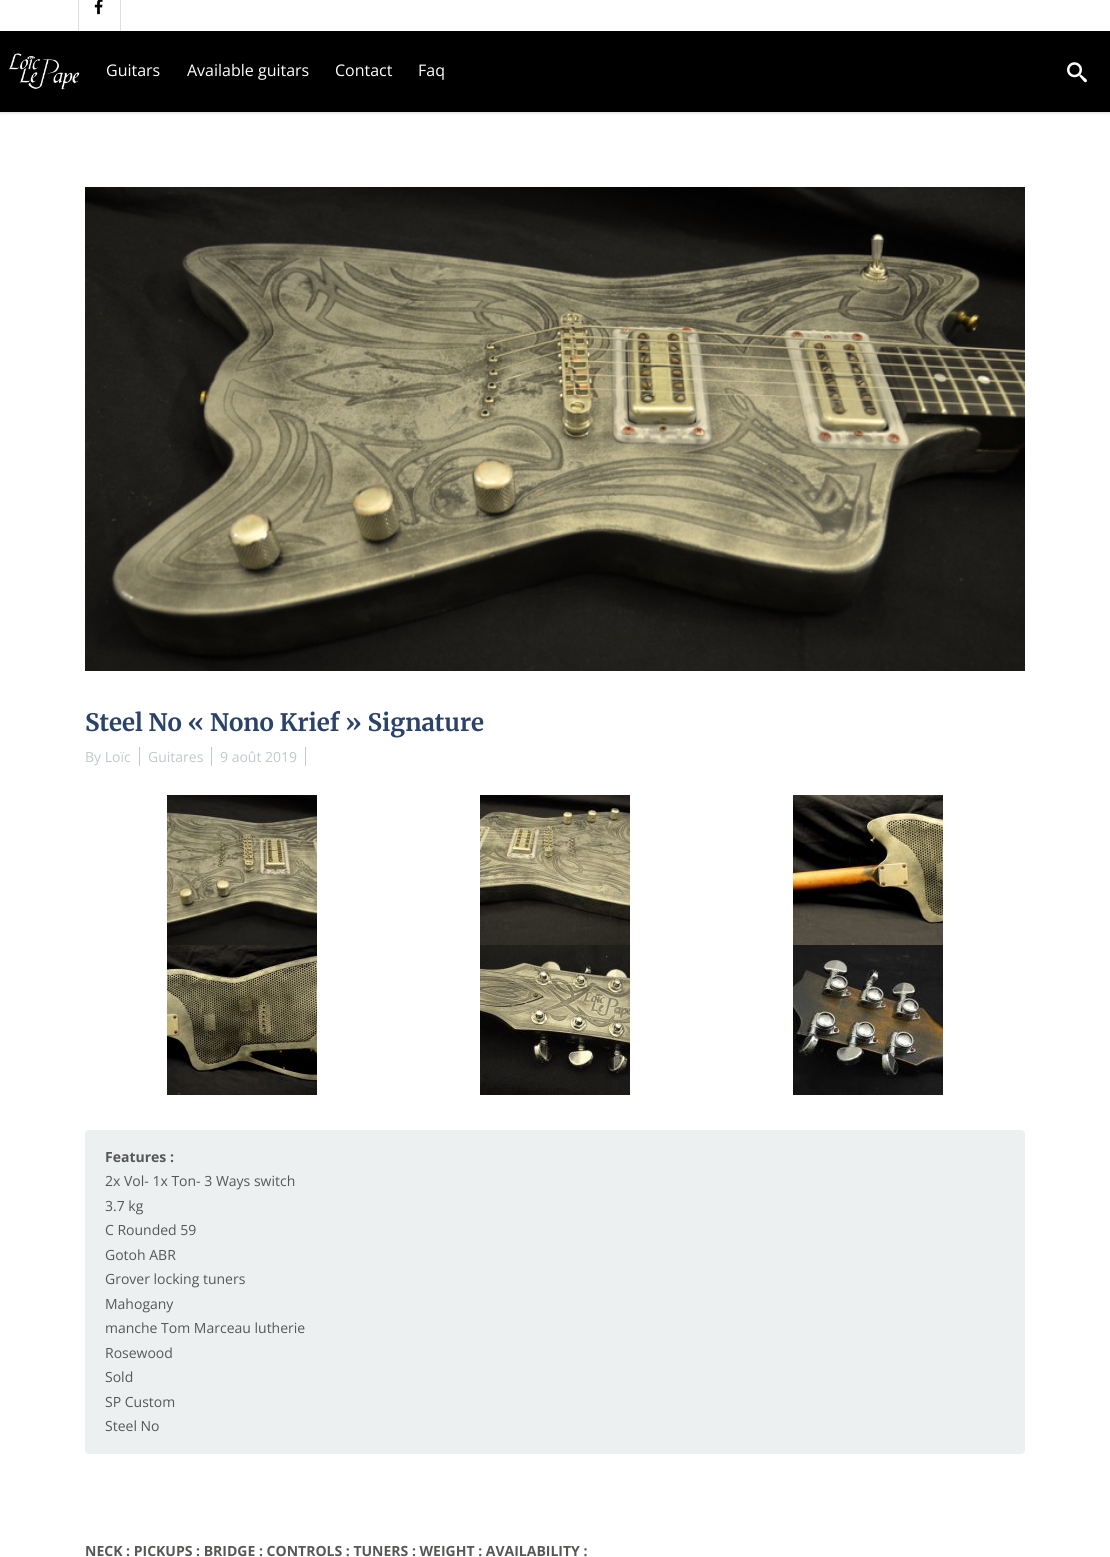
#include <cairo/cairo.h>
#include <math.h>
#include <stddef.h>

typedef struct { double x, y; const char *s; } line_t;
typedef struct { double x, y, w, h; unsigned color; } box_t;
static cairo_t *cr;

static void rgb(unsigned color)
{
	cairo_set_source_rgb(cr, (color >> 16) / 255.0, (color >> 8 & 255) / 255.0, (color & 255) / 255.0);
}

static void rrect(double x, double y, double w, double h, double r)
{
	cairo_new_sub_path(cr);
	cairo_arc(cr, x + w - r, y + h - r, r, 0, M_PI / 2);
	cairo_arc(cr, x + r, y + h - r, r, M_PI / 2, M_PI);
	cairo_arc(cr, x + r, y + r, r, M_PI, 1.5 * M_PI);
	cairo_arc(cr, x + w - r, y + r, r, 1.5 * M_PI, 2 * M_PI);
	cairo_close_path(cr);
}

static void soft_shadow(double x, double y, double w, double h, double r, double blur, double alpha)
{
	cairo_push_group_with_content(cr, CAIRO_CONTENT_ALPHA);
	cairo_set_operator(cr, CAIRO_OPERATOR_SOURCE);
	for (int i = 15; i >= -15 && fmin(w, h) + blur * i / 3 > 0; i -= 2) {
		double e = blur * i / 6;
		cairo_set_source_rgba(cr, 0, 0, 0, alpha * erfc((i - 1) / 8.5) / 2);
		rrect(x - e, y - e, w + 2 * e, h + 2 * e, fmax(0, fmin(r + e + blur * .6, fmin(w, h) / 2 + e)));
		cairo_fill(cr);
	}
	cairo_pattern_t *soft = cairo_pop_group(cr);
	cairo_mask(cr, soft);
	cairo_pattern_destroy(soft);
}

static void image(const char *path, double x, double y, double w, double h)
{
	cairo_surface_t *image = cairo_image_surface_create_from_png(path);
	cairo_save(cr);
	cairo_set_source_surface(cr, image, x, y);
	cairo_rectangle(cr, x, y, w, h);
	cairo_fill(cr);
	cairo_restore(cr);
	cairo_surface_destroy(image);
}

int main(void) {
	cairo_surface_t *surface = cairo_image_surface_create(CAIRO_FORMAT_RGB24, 1110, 1557);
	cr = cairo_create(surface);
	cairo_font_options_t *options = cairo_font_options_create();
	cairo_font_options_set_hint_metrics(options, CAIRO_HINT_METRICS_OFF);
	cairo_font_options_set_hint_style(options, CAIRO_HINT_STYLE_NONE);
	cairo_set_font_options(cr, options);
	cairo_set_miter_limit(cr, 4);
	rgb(0xffffff);
	cairo_paint(cr);
	rgb(0x000000);
	soft_shadow(0, -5, 1110, 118, 0, 1.5, 0.15);
	{
		static const box_t items[] = {
			{0, 31, 1110, 81, 0x000000},
			{0, 0, 1110, 31, 0xffffff},
			{120, 0, 1, 31, 0xdddddd},
			{78, 0, 1, 31, 0xdddddd},
		};
		for (size_t i = 0; i < sizeof items / sizeof *items; i++) {
			rgb(items[i].color);
			cairo_rectangle(cr, items[i].x, items[i].y, items[i].w, items[i].h);
			cairo_fill(cr);
		}
	}
	image("img/1.png", 94, 0, 9, 15);
	image("img/2.png", 8, 53, 72, 37);
	image("img/3.png", 1067, 62, 20, 21);
	image("img/4.png", 85, 187, 940, 484);
	{
		static const box_t items[] = {
			{139, 747, 1, 19, 0xc1c8cf},
			{211, 747, 1, 19, 0xc1c8cf},
			{305, 747, 1, 19, 0xc1c8cf},
		};
		for (size_t i = 0; i < sizeof items / sizeof *items; i++) {
			rgb(items[i].color);
			cairo_rectangle(cr, items[i].x, items[i].y, items[i].w, items[i].h);
			cairo_fill(cr);
		}
	}
	image("img/5.png", 167, 795, 150, 150);
	image("img/6.png", 480, 795, 150, 150);
	image("img/7.png", 793, 795, 150, 150);
	image("img/8.png", 167, 945, 150, 150);
	image("img/9.png", 480, 945, 150, 150);
	image("img/10.png", 793, 945, 150, 150);
	rgb(0xecf0f1);
	rrect(85, 1130, 940, 324, 4);
	cairo_fill(cr);
	cairo_select_font_face(cr, "Open Sans", CAIRO_FONT_SLANT_NORMAL, CAIRO_FONT_WEIGHT_NORMAL);
	cairo_set_font_size(cr, 16);
	rgb(0xffffff);
	{
		static const line_t items[] = {
			{106, 76, "Guitars"},
			{187, 76, "Available guitars"},
			{335, 76, "Contact"},
			{418, 76, "Faq"},
		};
		for (size_t i = 0; i < sizeof items / sizeof *items; i++) {
			cairo_move_to(cr, items[i].x, items[i].y);
			cairo_show_text(cr, items[i].s);
		}
	}
	cairo_select_font_face(cr, "Merriweather", CAIRO_FONT_SLANT_NORMAL, CAIRO_FONT_WEIGHT_BOLD);
	cairo_set_font_size(cr, 24);
	rgb(0x2b4269);
	cairo_move_to(cr, 85, 731);
	cairo_show_text(cr, "Steel No « Nono Krief » Signature");
	cairo_select_font_face(cr, "Open Sans", CAIRO_FONT_SLANT_NORMAL, CAIRO_FONT_WEIGHT_NORMAL);
	cairo_set_font_size(cr, 14);
	rgb(0xc1c8cf);
	{
		static const line_t items[] = {
			{85, 762, "By Loïc"},
			{148, 762, "Guitares"},
			{220, 762, "9 août 2019"},
		};
		for (size_t i = 0; i < sizeof items / sizeof *items; i++) {
			cairo_move_to(cr, items[i].x, items[i].y);
			cairo_show_text(cr, items[i].s);
		}
	}
	cairo_select_font_face(cr, "Open Sans", CAIRO_FONT_SLANT_NORMAL, CAIRO_FONT_WEIGHT_BOLD);
	rgb(0x575756);
	cairo_move_to(cr, 105, 1162);
	cairo_show_text(cr, "Features :");
	cairo_select_font_face(cr, "Open Sans", CAIRO_FONT_SLANT_NORMAL, CAIRO_FONT_WEIGHT_NORMAL);
	{
		static const line_t items[] = {
			{105, 1186, "2x Vol- 1x Ton- 3 Ways switch"},
			{105, 1211, "3.7 kg"},
			{105, 1235, "C Rounded 59"},
			{105, 1260, "Gotoh ABR"},
			{105, 1284, "Grover locking tuners"},
			{105, 1309, "Mahogany"},
			{105, 1333, "manche Tom Marceau lutherie"},
			{105, 1358, "Rosewood"},
			{105, 1382, "Sold"},
			{105, 1407, "SP Custom"},
			{105, 1431, "Steel No"},
		};
		for (size_t i = 0; i < sizeof items / sizeof *items; i++) {
			cairo_move_to(cr, items[i].x, items[i].y);
			cairo_show_text(cr, items[i].s);
		}
	}
	cairo_select_font_face(cr, "Open Sans", CAIRO_FONT_SLANT_NORMAL, CAIRO_FONT_WEIGHT_BOLD);
	cairo_move_to(cr, 85, 1556);
	cairo_show_text(cr, "NECK : PICKUPS : BRIDGE : CONTROLS : TUNERS : WEIGHT : AVAILABILITY :");
	cairo_surface_write_to_png(surface, "page.png");
	cairo_font_options_destroy(options);
	cairo_destroy(cr);
	cairo_surface_destroy(surface);
	return 0;
}
